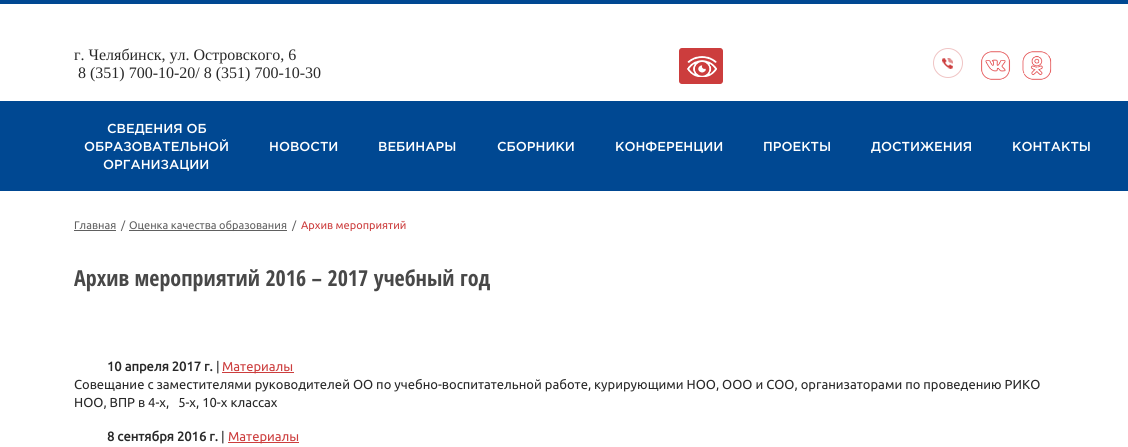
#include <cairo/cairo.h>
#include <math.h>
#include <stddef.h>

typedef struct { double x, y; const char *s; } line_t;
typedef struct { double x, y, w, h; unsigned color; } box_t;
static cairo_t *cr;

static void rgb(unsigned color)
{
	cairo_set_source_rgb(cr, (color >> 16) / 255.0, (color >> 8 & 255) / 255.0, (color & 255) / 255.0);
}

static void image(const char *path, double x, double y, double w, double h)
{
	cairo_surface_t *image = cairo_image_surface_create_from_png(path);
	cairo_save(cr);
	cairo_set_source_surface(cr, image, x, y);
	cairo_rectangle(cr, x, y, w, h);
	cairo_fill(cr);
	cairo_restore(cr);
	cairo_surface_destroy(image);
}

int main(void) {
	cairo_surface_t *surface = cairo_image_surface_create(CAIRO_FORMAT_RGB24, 1128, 447);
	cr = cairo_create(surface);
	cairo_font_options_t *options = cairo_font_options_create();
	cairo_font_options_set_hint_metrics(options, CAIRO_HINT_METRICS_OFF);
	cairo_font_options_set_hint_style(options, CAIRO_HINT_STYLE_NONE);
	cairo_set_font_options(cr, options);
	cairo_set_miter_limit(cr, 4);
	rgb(0xffffff);
	cairo_paint(cr);
	rgb(0x004892);
	cairo_rectangle(cr, 0, 0, 1128, 4);
	cairo_fill(cr);
	image("img/1.png", 679, 48, 44, 36);
	image("img/2.png", 933, 48, 30, 30);
	image("img/3.png", 981, 51, 30, 29);
	image("img/4.png", 1022, 51, 30, 29);
	{
		static const box_t items[] = {
			{0, 101, 1128, 90, 0x004892},
			{74, 230, 42, 1, 0x606060},
			{129, 230, 158, 1, 0x606060},
			{222, 372, 72, 1, 0xcc3d3d},
			{228, 442, 71, 1, 0xcc3d3d},
		};
		for (size_t i = 0; i < sizeof items / sizeof *items; i++) {
			rgb(items[i].color);
			cairo_rectangle(cr, items[i].x, items[i].y, items[i].w, items[i].h);
			cairo_fill(cr);
		}
	}
	cairo_select_font_face(cr, "Liberation Serif", CAIRO_FONT_SLANT_NORMAL, CAIRO_FONT_WEIGHT_NORMAL);
	cairo_set_font_size(cr, 16);
	rgb(0x282828);
	cairo_move_to(cr, 74, 60);
	cairo_show_text(cr, "г. Челябинск, ул. Островского, 6");
	cairo_move_to(cr, 78, 78);
	cairo_show_text(cr, "8 (351) 700-10-20/ 8 (351) 700-10-30");
	cairo_select_font_face(cr, "Gotham Medium", CAIRO_FONT_SLANT_NORMAL, CAIRO_FONT_WEIGHT_NORMAL);
	cairo_set_font_size(cr, 13);
	rgb(0xffffff);
	{
		static const line_t items[] = {
			{107, 133, "СВЕДЕНИЯ ОБ"},
			{84, 151, "ОБРАЗОВАТЕЛЬНОЙ"},
			{103, 169, "ОРГАНИЗАЦИИ"},
			{269, 151, "НОВОСТИ"},
			{378, 151, "ВЕБИНАРЫ"},
			{497, 151, "СБОРНИКИ"},
			{615, 151, "КОНФЕРЕНЦИИ"},
			{763, 151, "ПРОЕКТЫ"},
			{871, 151, "ДОСТИЖЕНИЯ"},
			{1012, 151, "КОНТАКТЫ"},
		};
		for (size_t i = 0; i < sizeof items / sizeof *items; i++) {
			cairo_move_to(cr, items[i].x, items[i].y);
			cairo_show_text(cr, items[i].s);
		}
	}
	cairo_select_font_face(cr, "Ubuntu", CAIRO_FONT_SLANT_NORMAL, CAIRO_FONT_WEIGHT_NORMAL);
	cairo_set_font_size(cr, 11);
	rgb(0x606060);
	{
		static const line_t items[] = {
			{74, 229, "Главная"},
			{121, 229, "/"},
			{129, 229, "Оценка качества образования"},
			{292, 229, "/"},
		};
		for (size_t i = 0; i < sizeof items / sizeof *items; i++) {
			cairo_move_to(cr, items[i].x, items[i].y);
			cairo_show_text(cr, items[i].s);
		}
	}
	rgb(0xcc3d3d);
	cairo_move_to(cr, 301, 229);
	cairo_show_text(cr, "Архив мероприятий");
	cairo_select_font_face(cr, "Open Sans Condensed", CAIRO_FONT_SLANT_NORMAL, CAIRO_FONT_WEIGHT_BOLD);
	cairo_set_font_size(cr, 22);
	rgb(0x484848);
	cairo_move_to(cr, 74, 286);
	cairo_show_text(cr, "Архив мероприятий 2016 – 2017 учебный год");
	cairo_select_font_face(cr, "Ubuntu", CAIRO_FONT_SLANT_NORMAL, CAIRO_FONT_WEIGHT_BOLD);
	cairo_set_font_size(cr, 13);
	rgb(0x282828);
	cairo_move_to(cr, 107, 371);
	cairo_show_text(cr, "10 апреля 2017 г.");
	cairo_select_font_face(cr, "Ubuntu", CAIRO_FONT_SLANT_NORMAL, CAIRO_FONT_WEIGHT_NORMAL);
	cairo_move_to(cr, 216, 371);
	cairo_show_text(cr, "|");
	rgb(0xcc3d3d);
	cairo_move_to(cr, 222, 371);
	cairo_show_text(cr, "Материалы");
	rgb(0x282828);
	cairo_move_to(cr, 74, 389);
	cairo_show_text(cr, "Совещание с заместителями руководителей ОО по учебно-воспитательной работе, курирующими НОО, ООО и СОО, организаторами по проведению РИКО");
	cairo_move_to(cr, 74, 407);
	cairo_show_text(cr, "НОО, ВПР в 4-х,   5-х, 10-х классах");
	cairo_select_font_face(cr, "Ubuntu", CAIRO_FONT_SLANT_NORMAL, CAIRO_FONT_WEIGHT_BOLD);
	cairo_move_to(cr, 107, 441);
	cairo_show_text(cr, "8 сентября 2016 г.");
	cairo_select_font_face(cr, "Ubuntu", CAIRO_FONT_SLANT_NORMAL, CAIRO_FONT_WEIGHT_NORMAL);
	cairo_move_to(cr, 221, 441);
	cairo_show_text(cr, "|");
	rgb(0xcc3d3d);
	cairo_move_to(cr, 228, 441);
	cairo_show_text(cr, "Материалы");
	cairo_surface_write_to_png(surface, "page.png");
	cairo_font_options_destroy(options);
	cairo_destroy(cr);
	cairo_surface_destroy(surface);
	return 0;
}
